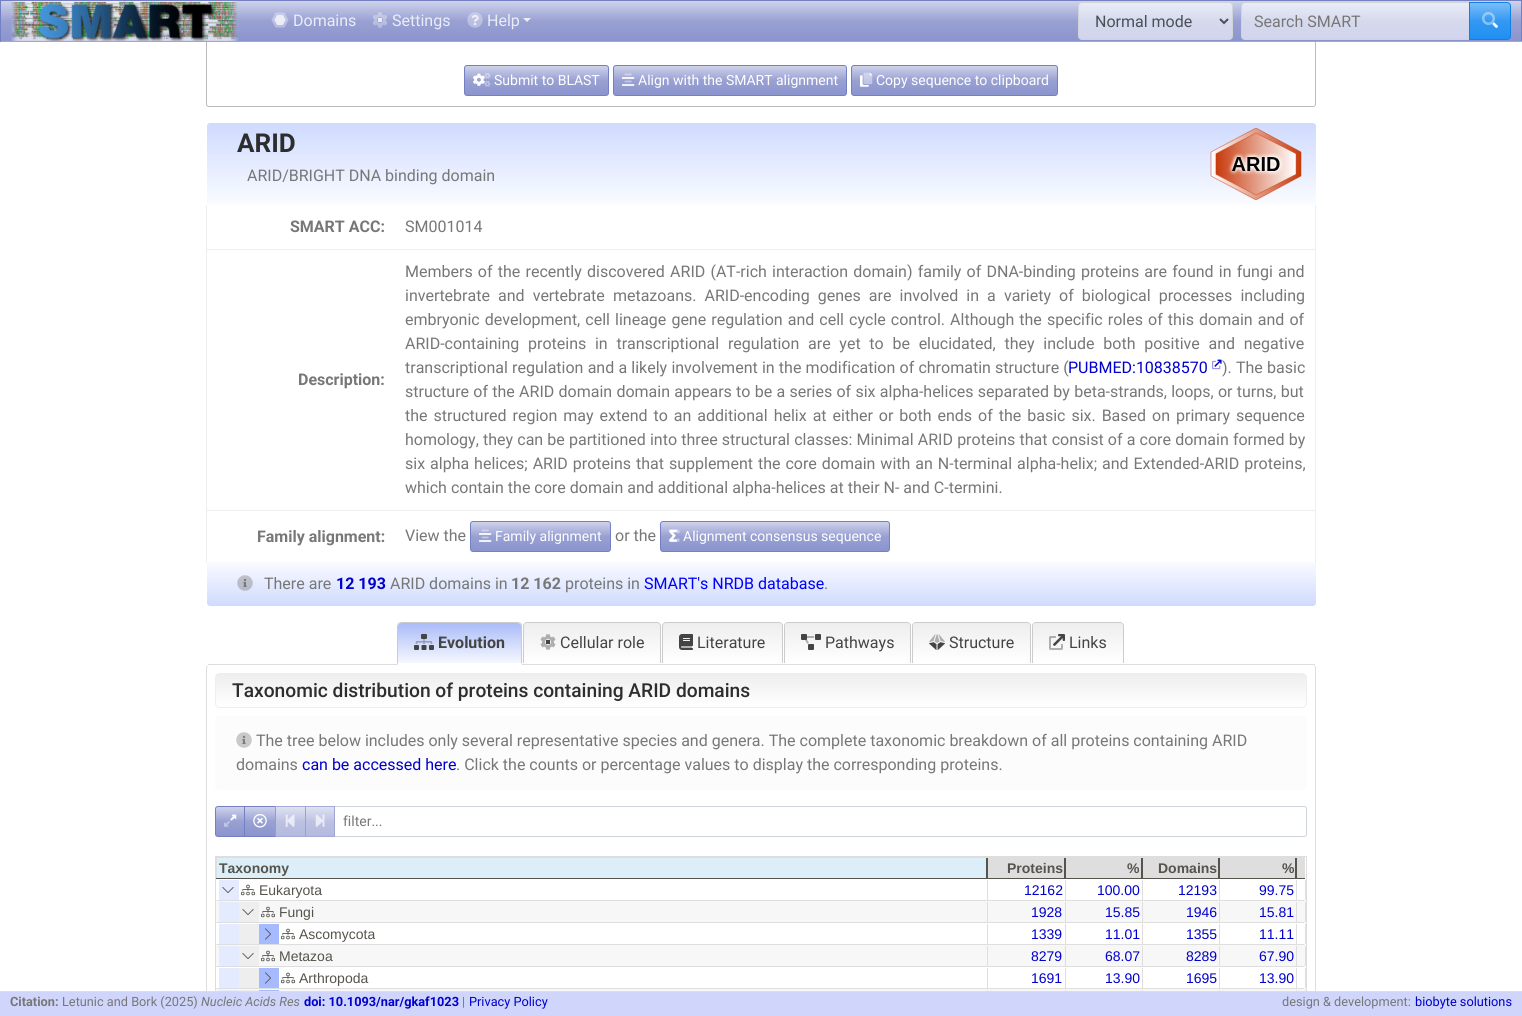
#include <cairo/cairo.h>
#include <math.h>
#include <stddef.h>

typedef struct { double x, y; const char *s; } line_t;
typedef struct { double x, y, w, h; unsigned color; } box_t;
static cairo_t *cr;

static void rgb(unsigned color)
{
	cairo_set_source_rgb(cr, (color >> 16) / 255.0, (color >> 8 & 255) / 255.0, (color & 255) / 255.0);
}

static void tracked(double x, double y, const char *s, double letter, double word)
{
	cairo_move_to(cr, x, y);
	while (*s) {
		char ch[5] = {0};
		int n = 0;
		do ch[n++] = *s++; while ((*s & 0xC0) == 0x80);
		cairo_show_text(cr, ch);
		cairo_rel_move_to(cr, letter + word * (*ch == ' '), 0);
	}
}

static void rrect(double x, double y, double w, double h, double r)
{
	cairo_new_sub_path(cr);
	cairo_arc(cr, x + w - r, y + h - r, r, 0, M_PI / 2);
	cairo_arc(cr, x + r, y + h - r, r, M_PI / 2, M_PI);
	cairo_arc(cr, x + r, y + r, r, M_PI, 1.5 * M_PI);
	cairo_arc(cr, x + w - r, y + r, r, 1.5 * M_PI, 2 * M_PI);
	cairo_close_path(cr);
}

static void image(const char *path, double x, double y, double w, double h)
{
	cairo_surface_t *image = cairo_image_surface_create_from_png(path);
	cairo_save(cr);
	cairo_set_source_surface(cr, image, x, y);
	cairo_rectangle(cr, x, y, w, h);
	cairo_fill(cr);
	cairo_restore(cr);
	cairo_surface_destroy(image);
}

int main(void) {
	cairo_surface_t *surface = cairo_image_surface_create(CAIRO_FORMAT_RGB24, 1522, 1016);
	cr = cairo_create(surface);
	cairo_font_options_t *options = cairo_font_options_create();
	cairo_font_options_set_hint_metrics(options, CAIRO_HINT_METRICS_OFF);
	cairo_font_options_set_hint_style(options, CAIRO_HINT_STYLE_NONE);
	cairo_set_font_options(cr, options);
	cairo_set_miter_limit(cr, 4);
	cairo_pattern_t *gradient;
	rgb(0xffffff);
	cairo_paint(cr);
	rrect(206.5, 20.5, 1109, 86, 2.5);
	rgb(0xbbbbbb);
	cairo_set_line_width(cr, 1);
	cairo_stroke(cr);
	gradient = cairo_pattern_create_linear(761, 1, 761, 41);
	cairo_pattern_add_color_stop_rgba(gradient, 0, 0.808, 0.824, 0.918, 1);
	cairo_pattern_add_color_stop_rgba(gradient, 0.5, 0.6, 0.631, 0.827, 1);
	cairo_pattern_add_color_stop_rgba(gradient, 1, 0.545, 0.58, 0.804, 1);
	cairo_set_source(cr, gradient);
	cairo_pattern_destroy(gradient);
	cairo_rectangle(cr, 1, 1, 1520, 40);
	cairo_fill(cr);
	{
		static const box_t items[] = {
			{0, 0, 1522, 1, 0x7580c4},
			{1521, 0, 1, 42, 0x7580c4},
			{0, 41, 1522, 1, 0xaaaaaa},
			{0, 0, 1, 42, 0x7580c4},
		};
		for (size_t i = 0; i < sizeof items / sizeof *items; i++) {
			rgb(items[i].color);
			cairo_rectangle(cr, items[i].x, items[i].y, items[i].w, items[i].h);
			cairo_fill(cr);
		}
	}
	image("img/1.png", 11, 1, 228, 40);
	image("img/3.png", 274, 15, 12, 10);
	image("img/2.png", 271, 12, 18, 16);
	cairo_set_source_rgba(cr, 1, 1, 1, 0.8);
	cairo_rectangle(cr, 378, 18, 4, 4);
	cairo_fill(cr);
	image("img/4.png", 372, 12, 16, 16);
	image("img/6.png", 471, 14, 8, 12);
	image("img/5.png", 467, 12, 16, 16);
	cairo_new_path(cr);
	cairo_move_to(cr, 523, 18);
	cairo_line_to(cr, 531, 18);
	cairo_line_to(cr, 527, 22);
	cairo_close_path(cr);
	cairo_fill(cr);
	cairo_set_source_rgba(cr, 1, 1, 1, 0.6);
	rrect(1078.5, 2.5, 154, 37, 3.5);
	cairo_fill_preserve(cr);
	rgb(0xced4da);
	cairo_stroke(cr);
	cairo_new_path(cr);
	cairo_move_to(cr, 1220, 19);
	cairo_line_to(cr, 1224, 23);
	cairo_line_to(cr, 1228, 19);
	rgb(0x495057);
	cairo_set_line_width(cr, 2);
	cairo_stroke(cr);
	cairo_set_source_rgba(cr, 1, 1, 1, 0.6);
	cairo_new_path(cr);
	cairo_move_to(cr, 1245, 2.5);
	cairo_line_to(cr, 1469.5, 2.5);
	cairo_line_to(cr, 1469.5, 39.5);
	cairo_line_to(cr, 1245, 39.5);
	cairo_curve_to(cr, 1243, 39.5, 1241.5, 38, 1241.5, 36);
	cairo_line_to(cr, 1241.5, 6);
	cairo_curve_to(cr, 1241.5, 4, 1243, 2.5, 1245, 2.5);
	cairo_close_path(cr);
	cairo_fill_preserve(cr);
	rgb(0xced4da);
	cairo_set_line_width(cr, 1);
	cairo_stroke(cr);
	gradient = cairo_pattern_create_linear(1490, 3, 1490, 39);
	cairo_pattern_add_color_stop_rgba(gradient, 0, 0.482, 0.741, 0.969, 1);
	cairo_pattern_add_color_stop_rgba(gradient, 0.5, 0.2, 0.6, 0.953, 1);
	cairo_pattern_add_color_stop_rgba(gradient, 1, 0.125, 0.561, 0.949, 1);
	cairo_set_source(cr, gradient);
	cairo_pattern_destroy(gradient);
	cairo_rectangle(cr, 1470, 3, 40, 36);
	cairo_fill(cr);
	cairo_new_path(cr);
	cairo_move_to(cr, 1469.5, 2.5);
	cairo_line_to(cr, 1507, 2.5);
	cairo_curve_to(cr, 1509, 2.5, 1510.5, 4, 1510.5, 6);
	cairo_line_to(cr, 1510.5, 36);
	cairo_curve_to(cr, 1510.5, 38, 1509, 39.5, 1507, 39.5);
	cairo_line_to(cr, 1469.5, 39.5);
	cairo_close_path(cr);
	rgb(0x0e80e6);
	cairo_stroke(cr);
	image("img/8.png", 1492, 22, 6, 6);
	image("img/7.png", 1482, 12, 13, 13);
	gradient = cairo_pattern_create_linear(537, 66, 537, 95);
	cairo_pattern_add_color_stop_rgba(gradient, 0, 0.808, 0.824, 0.918, 1);
	cairo_pattern_add_color_stop_rgba(gradient, 0.5, 0.6, 0.631, 0.827, 1);
	cairo_pattern_add_color_stop_rgba(gradient, 1, 0.545, 0.58, 0.804, 1);
	cairo_set_source(cr, gradient);
	cairo_pattern_destroy(gradient);
	cairo_rectangle(cr, 465, 66, 143, 29);
	cairo_fill(cr);
	rrect(464.5, 65.5, 144, 30, 2.5);
	rgb(0x7580c4);
	cairo_stroke(cr);
	image("img/9.png", 473, 73, 12, 13);
	image("img/10.png", 484, 73, 7, 14);
	gradient = cairo_pattern_create_linear(730, 66, 730, 95);
	cairo_pattern_add_color_stop_rgba(gradient, 0, 0.808, 0.824, 0.918, 1);
	cairo_pattern_add_color_stop_rgba(gradient, 0.5, 0.6, 0.631, 0.827, 1);
	cairo_pattern_add_color_stop_rgba(gradient, 1, 0.545, 0.58, 0.804, 1);
	cairo_set_source(cr, gradient);
	cairo_pattern_destroy(gradient);
	cairo_rectangle(cr, 614, 66, 232, 29);
	cairo_fill(cr);
	rrect(613.5, 65.5, 233, 30, 2.5);
	rgb(0x7580c4);
	cairo_stroke(cr);
	image("img/12.png", 622, 77, 13, 9);
	image("img/11.png", 624, 73, 8, 10);
	gradient = cairo_pattern_create_linear(955, 66, 955, 95);
	cairo_pattern_add_color_stop_rgba(gradient, 0, 0.808, 0.824, 0.918, 1);
	cairo_pattern_add_color_stop_rgba(gradient, 0.5, 0.6, 0.631, 0.827, 1);
	cairo_pattern_add_color_stop_rgba(gradient, 1, 0.545, 0.58, 0.804, 1);
	cairo_set_source(cr, gradient);
	cairo_pattern_destroy(gradient);
	cairo_rectangle(cr, 852, 66, 205, 29);
	cairo_fill(cr);
	rrect(851.5, 65.5, 206, 30, 2.5);
	rgb(0x7580c4);
	cairo_stroke(cr);
	image("img/13.png", 860, 72, 13, 15);
	image("img/14.png", 863, 72, 10, 13);
	gradient = cairo_pattern_create_linear(762, 123, 762, 205);
	cairo_pattern_add_color_stop_rgba(gradient, 0, 0.812, 0.855, 1, 1);
	cairo_pattern_add_color_stop_rgba(gradient, 1, 0.98, 0.988, 1, 1);
	cairo_set_source(cr, gradient);
	cairo_pattern_destroy(gradient);
	rrect(207, 123, 1109, 82, 3);
	cairo_fill(cr);
	image("img/15.png", 1210, 128, 92, 72);
	rgb(0xeeeeee);
	cairo_rectangle(cr, 206, 510, 1, 53);
	cairo_fill(cr);
	gradient = cairo_pattern_create_linear(762, 606, 762, 562);
	cairo_pattern_add_color_stop_rgba(gradient, 0, 0.812, 0.855, 1, 1);
	cairo_pattern_add_color_stop_rgba(gradient, 1, 0.98, 0.984, 1, 1);
	cairo_set_source(cr, gradient);
	cairo_pattern_destroy(gradient);
	cairo_new_path(cr);
	cairo_move_to(cr, 207, 562);
	cairo_line_to(cr, 1316, 562);
	cairo_line_to(cr, 1316, 603);
	cairo_curve_to(cr, 1316, 604.5, 1314.5, 606, 1313, 606);
	cairo_line_to(cr, 210, 606);
	cairo_curve_to(cr, 208.5, 606, 207, 604.5, 207, 603);
	cairo_close_path(cr);
	cairo_fill(cr);
	{
		static const box_t items[] = {
			{1315, 205, 1, 358, 0xeeeeee},
			{206, 510, 1110, 1, 0xeeeeee},
			{206, 249, 1, 262, 0xeeeeee},
			{206, 249, 1110, 1, 0xeeeeee},
			{206, 205, 1, 45, 0xeeeeee},
		};
		for (size_t i = 0; i < sizeof items / sizeof *items; i++) {
			rgb(items[i].color);
			cairo_rectangle(cr, items[i].x, items[i].y, items[i].w, items[i].h);
			cairo_fill(cr);
		}
	}
	image("img/16.png", 1214, 359, 8, 8);
	image("img/17.png", 1212, 360, 9, 10);
	gradient = cairo_pattern_create_linear(541, 522, 541, 551);
	cairo_pattern_add_color_stop_rgba(gradient, 0, 0.808, 0.824, 0.918, 1);
	cairo_pattern_add_color_stop_rgba(gradient, 0.5, 0.6, 0.631, 0.827, 1);
	cairo_pattern_add_color_stop_rgba(gradient, 1, 0.545, 0.58, 0.804, 1);
	cairo_set_source(cr, gradient);
	cairo_pattern_destroy(gradient);
	cairo_rectangle(cr, 471, 522, 139, 29);
	cairo_fill(cr);
	rrect(470.5, 521.5, 140, 30, 2.5);
	rgb(0x7580c4);
	cairo_stroke(cr);
	image("img/12.png", 479, 533, 13, 9);
	image("img/11.png", 481, 529, 8, 10);
	gradient = cairo_pattern_create_linear(775, 522, 775, 551);
	cairo_pattern_add_color_stop_rgba(gradient, 0, 0.808, 0.824, 0.918, 1);
	cairo_pattern_add_color_stop_rgba(gradient, 0.5, 0.6, 0.631, 0.827, 1);
	cairo_pattern_add_color_stop_rgba(gradient, 1, 0.545, 0.58, 0.804, 1);
	cairo_set_source(cr, gradient);
	cairo_pattern_destroy(gradient);
	cairo_rectangle(cr, 661, 522, 228, 29);
	cairo_fill(cr);
	rrect(660.5, 521.5, 229, 30, 2.5);
	rgb(0x7580c4);
	cairo_stroke(cr);
	image("img/18.png", 669, 529, 8, 13);
	image("img/19.png", 677, 529, 3, 13);
	image("img/21.png", 243, 578, 4, 9);
	image("img/20.png", 237, 575, 16, 16);
	gradient = cairo_pattern_create_linear(460, 623, 460, 663);
	cairo_pattern_add_color_stop_rgba(gradient, 0, 0.663, 0.733, 0.973, 1);
	cairo_pattern_add_color_stop_rgba(gradient, 1, 0.965, 0.973, 0.996, 1);
	cairo_set_source(cr, gradient);
	cairo_pattern_destroy(gradient);
	cairo_new_path(cr);
	cairo_move_to(cr, 401, 623);
	cairo_line_to(cr, 518, 623);
	cairo_curve_to(cr, 519.5, 623, 521, 624.5, 521, 626);
	cairo_line_to(cr, 521, 663);
	cairo_line_to(cr, 398, 663);
	cairo_line_to(cr, 398, 626);
	cairo_curve_to(cr, 398, 624.5, 399.5, 623, 401, 623);
	cairo_close_path(cr);
	cairo_fill(cr);
	rgb(0xcccccc);
	cairo_new_path(cr);
	cairo_move_to(cr, 401, 622);
	cairo_line_to(cr, 398, 623);
	cairo_line_to(cr, 399, 624);
	cairo_line_to(cr, 401, 623);
	cairo_line_to(cr, 518, 623);
	cairo_line_to(cr, 520, 624);
	cairo_line_to(cr, 521, 623);
	cairo_line_to(cr, 518, 622);
	cairo_close_path(cr);
	cairo_fill(cr);
	rgb(0xdddddd);
	cairo_rectangle(cr, 208, 664, 1107, 1);
	cairo_fill(cr);
	rgb(0xcccccc);
	cairo_new_path(cr);
	cairo_move_to(cr, 522, 665);
	cairo_line_to(cr, 522, 626);
	cairo_curve_to(cr, 522, 625, 522, 624, 521, 623);
	cairo_line_to(cr, 520, 624);
	cairo_line_to(cr, 521, 626);
	cairo_line_to(cr, 521, 663);
	cairo_close_path(cr);
	cairo_fill(cr);
	rgb(0xffffff);
	cairo_new_path(cr);
	cairo_move_to(cr, 522, 665);
	cairo_line_to(cr, 521, 663);
	cairo_line_to(cr, 398, 663);
	cairo_line_to(cr, 397, 665);
	cairo_close_path(cr);
	cairo_fill(cr);
	rgb(0xcccccc);
	cairo_new_path(cr);
	cairo_move_to(cr, 397, 665);
	cairo_line_to(cr, 398, 663);
	cairo_line_to(cr, 398, 626);
	cairo_line_to(cr, 399, 624);
	cairo_line_to(cr, 398, 623);
	cairo_line_to(cr, 397, 626);
	cairo_close_path(cr);
	cairo_fill(cr);
	image("img/22.png", 414, 634, 20, 16);
	image("img/23.png", 415, 639, 18, 5);
	cairo_save(cr);
	cairo_new_path(cr);
	cairo_move_to(cr, 527, 622);
	cairo_line_to(cr, 657, 622);
	cairo_curve_to(cr, 659, 622, 661, 624, 661, 626);
	cairo_line_to(cr, 661, 663);
	cairo_line_to(cr, 523, 663);
	cairo_line_to(cr, 523, 626);
	cairo_curve_to(cr, 523, 624, 525, 622, 527, 622);
	cairo_close_path(cr);
	cairo_clip(cr);
	gradient = cairo_pattern_create_linear(592, 623, 592, 663);
	cairo_pattern_add_color_stop_rgba(gradient, 0, 0.933, 0.933, 0.933, 1);
	cairo_pattern_add_color_stop_rgba(gradient, 1, 1, 1, 1, 1);
	cairo_set_source(cr, gradient);
	cairo_pattern_destroy(gradient);
	cairo_rectangle(cr, 523, 623, 138, 40);
	cairo_fill(cr);
	cairo_restore(cr);
	cairo_set_fill_rule(cr, CAIRO_FILL_RULE_EVEN_ODD);
	cairo_new_path(cr);
	cairo_move_to(cr, 527, 622);
	cairo_line_to(cr, 657, 622);
	cairo_curve_to(cr, 659, 622, 661, 624, 661, 626);
	cairo_line_to(cr, 661, 663);
	cairo_line_to(cr, 523, 663);
	cairo_line_to(cr, 523, 626);
	cairo_curve_to(cr, 523, 624, 525, 622, 527, 622);
	cairo_close_path(cr);
	cairo_move_to(cr, 527, 623);
	cairo_line_to(cr, 657, 623);
	cairo_curve_to(cr, 659, 623, 660, 624, 660, 626);
	cairo_line_to(cr, 660, 663);
	cairo_line_to(cr, 524, 663);
	cairo_line_to(cr, 524, 626);
	cairo_curve_to(cr, 524, 624, 525, 623, 527, 623);
	cairo_close_path(cr);
	cairo_fill(cr);
	rgb(0x444444);
	cairo_rectangle(cr, 546, 640, 4, 4);
	cairo_fill(cr);
	image("img/24.png", 540, 634, 16, 16);
	cairo_save(cr);
	cairo_set_fill_rule(cr, CAIRO_FILL_RULE_WINDING);
	cairo_new_path(cr);
	cairo_move_to(cr, 666, 622);
	cairo_line_to(cr, 779, 622);
	cairo_curve_to(cr, 781, 622, 783, 624, 783, 626);
	cairo_line_to(cr, 783, 663);
	cairo_line_to(cr, 662, 663);
	cairo_line_to(cr, 662, 626);
	cairo_curve_to(cr, 662, 624, 664, 622, 666, 622);
	cairo_close_path(cr);
	cairo_clip(cr);
	gradient = cairo_pattern_create_linear(723, 623, 723, 663);
	cairo_pattern_add_color_stop_rgba(gradient, 0, 0.933, 0.933, 0.933, 1);
	cairo_pattern_add_color_stop_rgba(gradient, 1, 1, 1, 1, 1);
	cairo_set_source(cr, gradient);
	cairo_pattern_destroy(gradient);
	cairo_rectangle(cr, 662, 623, 121, 40);
	cairo_fill(cr);
	cairo_restore(cr);
	rgb(0xcccccc);
	cairo_new_path(cr);
	cairo_move_to(cr, 666, 622);
	cairo_line_to(cr, 779, 622);
	cairo_curve_to(cr, 781, 622, 783, 624, 783, 626);
	cairo_line_to(cr, 783, 663);
	cairo_line_to(cr, 662, 663);
	cairo_line_to(cr, 662, 626);
	cairo_curve_to(cr, 662, 624, 664, 622, 666, 622);
	cairo_close_path(cr);
	cairo_move_to(cr, 666, 623);
	cairo_line_to(cr, 779, 623);
	cairo_curve_to(cr, 781, 623, 782, 624, 782, 626);
	cairo_line_to(cr, 782, 663);
	cairo_line_to(cr, 663, 663);
	cairo_line_to(cr, 663, 626);
	cairo_curve_to(cr, 663, 624, 664, 623, 666, 623);
	cairo_close_path(cr);
	cairo_fill(cr);
	image("img/25.png", 679, 634, 14, 16);
	image("img/26.png", 681, 646, 11, 2);
	cairo_save(cr);
	cairo_set_fill_rule(cr, CAIRO_FILL_RULE_WINDING);
	cairo_new_path(cr);
	cairo_move_to(cr, 788, 622);
	cairo_line_to(cr, 907, 622);
	cairo_curve_to(cr, 909, 622, 911, 624, 911, 626);
	cairo_line_to(cr, 911, 663);
	cairo_line_to(cr, 784, 663);
	cairo_line_to(cr, 784, 626);
	cairo_curve_to(cr, 784, 624, 786, 622, 788, 622);
	cairo_close_path(cr);
	cairo_clip(cr);
	gradient = cairo_pattern_create_linear(848, 623, 848, 663);
	cairo_pattern_add_color_stop_rgba(gradient, 0, 0.933, 0.933, 0.933, 1);
	cairo_pattern_add_color_stop_rgba(gradient, 1, 1, 1, 1, 1);
	cairo_set_source(cr, gradient);
	cairo_pattern_destroy(gradient);
	cairo_rectangle(cr, 784, 623, 127, 40);
	cairo_fill(cr);
	cairo_restore(cr);
	cairo_new_path(cr);
	cairo_move_to(cr, 788, 622);
	cairo_line_to(cr, 907, 622);
	cairo_curve_to(cr, 909, 622, 911, 624, 911, 626);
	cairo_line_to(cr, 911, 663);
	cairo_line_to(cr, 784, 663);
	cairo_line_to(cr, 784, 626);
	cairo_curve_to(cr, 784, 624, 786, 622, 788, 622);
	cairo_close_path(cr);
	cairo_move_to(cr, 788, 623);
	cairo_line_to(cr, 907, 623);
	cairo_curve_to(cr, 909, 623, 910, 624, 910, 626);
	cairo_line_to(cr, 910, 663);
	cairo_line_to(cr, 785, 663);
	cairo_line_to(cr, 785, 626);
	cairo_curve_to(cr, 785, 624, 786, 623, 788, 623);
	cairo_close_path(cr);
	cairo_fill(cr);
	image("img/27.png", 801, 634, 20, 16);
	image("img/28.png", 805, 636, 9, 8);
	cairo_save(cr);
	cairo_set_fill_rule(cr, CAIRO_FILL_RULE_WINDING);
	cairo_new_path(cr);
	cairo_move_to(cr, 916, 622);
	cairo_line_to(cr, 1027, 622);
	cairo_curve_to(cr, 1029, 622, 1031, 624, 1031, 626);
	cairo_line_to(cr, 1031, 663);
	cairo_line_to(cr, 912, 663);
	cairo_line_to(cr, 912, 626);
	cairo_curve_to(cr, 912, 624, 914, 622, 916, 622);
	cairo_close_path(cr);
	cairo_clip(cr);
	gradient = cairo_pattern_create_linear(972, 623, 972, 663);
	cairo_pattern_add_color_stop_rgba(gradient, 0, 0.933, 0.933, 0.933, 1);
	cairo_pattern_add_color_stop_rgba(gradient, 1, 1, 1, 1, 1);
	cairo_set_source(cr, gradient);
	cairo_pattern_destroy(gradient);
	cairo_rectangle(cr, 912, 623, 119, 40);
	cairo_fill(cr);
	cairo_restore(cr);
	cairo_new_path(cr);
	cairo_move_to(cr, 916, 622);
	cairo_line_to(cr, 1027, 622);
	cairo_curve_to(cr, 1029, 622, 1031, 624, 1031, 626);
	cairo_line_to(cr, 1031, 663);
	cairo_line_to(cr, 912, 663);
	cairo_line_to(cr, 912, 626);
	cairo_curve_to(cr, 912, 624, 914, 622, 916, 622);
	cairo_close_path(cr);
	cairo_move_to(cr, 916, 623);
	cairo_line_to(cr, 1027, 623);
	cairo_curve_to(cr, 1029, 623, 1030, 624, 1030, 626);
	cairo_line_to(cr, 1030, 663);
	cairo_line_to(cr, 913, 663);
	cairo_line_to(cr, 913, 626);
	cairo_curve_to(cr, 913, 624, 914, 623, 916, 623);
	cairo_close_path(cr);
	cairo_fill(cr);
	image("img/30.png", 929, 642, 16, 8);
	image("img/29.png", 929, 634, 16, 9);
	cairo_save(cr);
	cairo_set_fill_rule(cr, CAIRO_FILL_RULE_WINDING);
	cairo_new_path(cr);
	cairo_move_to(cr, 1036, 622);
	cairo_line_to(cr, 1120, 622);
	cairo_curve_to(cr, 1122, 622, 1124, 624, 1124, 626);
	cairo_line_to(cr, 1124, 663);
	cairo_line_to(cr, 1032, 663);
	cairo_line_to(cr, 1032, 626);
	cairo_curve_to(cr, 1032, 624, 1034, 622, 1036, 622);
	cairo_close_path(cr);
	cairo_clip(cr);
	gradient = cairo_pattern_create_linear(1078, 623, 1078, 663);
	cairo_pattern_add_color_stop_rgba(gradient, 0, 0.933, 0.933, 0.933, 1);
	cairo_pattern_add_color_stop_rgba(gradient, 1, 1, 1, 1, 1);
	cairo_set_source(cr, gradient);
	cairo_pattern_destroy(gradient);
	cairo_rectangle(cr, 1032, 623, 92, 40);
	cairo_fill(cr);
	cairo_restore(cr);
	cairo_new_path(cr);
	cairo_move_to(cr, 1036, 622);
	cairo_line_to(cr, 1120, 622);
	cairo_curve_to(cr, 1122, 622, 1124, 624, 1124, 626);
	cairo_line_to(cr, 1124, 663);
	cairo_line_to(cr, 1032, 663);
	cairo_line_to(cr, 1032, 626);
	cairo_curve_to(cr, 1032, 624, 1034, 622, 1036, 622);
	cairo_close_path(cr);
	cairo_move_to(cr, 1036, 623);
	cairo_line_to(cr, 1120, 623);
	cairo_curve_to(cr, 1122, 623, 1123, 624, 1123, 626);
	cairo_line_to(cr, 1123, 663);
	cairo_line_to(cr, 1033, 663);
	cairo_line_to(cr, 1033, 626);
	cairo_curve_to(cr, 1033, 624, 1034, 623, 1036, 623);
	cairo_close_path(cr);
	cairo_fill(cr);
	image("img/31.png", 1053, 634, 12, 12);
	image("img/32.png", 1049, 636, 14, 14);
	rgb(0xdddddd);
	cairo_new_path(cr);
	cairo_move_to(cr, 209, 665);
	cairo_line_to(cr, 1313, 665);
	cairo_curve_to(cr, 1315, 665, 1316, 666, 1316, 668);
	cairo_line_to(cr, 1316, 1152);
	cairo_curve_to(cr, 1316, 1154, 1315, 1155, 1313, 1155);
	cairo_line_to(cr, 209, 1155);
	cairo_curve_to(cr, 207, 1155, 206, 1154, 206, 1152);
	cairo_line_to(cr, 206, 668);
	cairo_curve_to(cr, 206, 666, 207, 665, 209, 665);
	cairo_close_path(cr);
	cairo_move_to(cr, 209, 665);
	cairo_line_to(cr, 1313, 665);
	cairo_curve_to(cr, 1314, 665, 1315, 666, 1315, 668);
	cairo_line_to(cr, 1315, 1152);
	cairo_curve_to(cr, 1315, 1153, 1314, 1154, 1313, 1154);
	cairo_line_to(cr, 209, 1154);
	cairo_curve_to(cr, 208, 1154, 207, 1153, 207, 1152);
	cairo_line_to(cr, 207, 668);
	cairo_curve_to(cr, 207, 666, 208, 665, 209, 665);
	cairo_close_path(cr);
	cairo_fill(cr);
	cairo_save(cr);
	cairo_set_fill_rule(cr, CAIRO_FILL_RULE_WINDING);
	rrect(215, 673, 1092, 35, 5);
	cairo_clip(cr);
	gradient = cairo_pattern_create_linear(761, 674, 761, 707);
	cairo_pattern_add_color_stop_rgba(gradient, 0, 0.933, 0.933, 0.933, 1);
	cairo_pattern_add_color_stop_rgba(gradient, 1, 1, 1, 1, 1);
	cairo_set_source(cr, gradient);
	cairo_pattern_destroy(gradient);
	cairo_rectangle(cr, 215, 674, 1092, 33);
	cairo_fill(cr);
	cairo_restore(cr);
	rrect(215.5, 673.5, 1091, 34, 4.5);
	rgb(0xeeeeee);
	cairo_stroke(cr);
	rgb(0xfcfcfc);
	rrect(215, 716, 1092, 74, 4);
	cairo_fill(cr);
	image("img/34.png", 242, 735, 4, 9);
	image("img/33.png", 236, 732, 16, 16);
	gradient = cairo_pattern_create_linear(230, 807, 230, 836);
	cairo_pattern_add_color_stop_rgba(gradient, 0, 0.808, 0.824, 0.918, 1);
	cairo_pattern_add_color_stop_rgba(gradient, 0.5, 0.6, 0.631, 0.827, 1);
	cairo_pattern_add_color_stop_rgba(gradient, 1, 0.545, 0.58, 0.804, 1);
	cairo_set_source(cr, gradient);
	cairo_pattern_destroy(gradient);
	cairo_rectangle(cr, 216, 807, 28, 29);
	cairo_fill(cr);
	cairo_new_path(cr);
	cairo_move_to(cr, 218, 806.5);
	cairo_line_to(cr, 244.5, 806.5);
	cairo_line_to(cr, 244.5, 836.5);
	cairo_line_to(cr, 218, 836.5);
	cairo_curve_to(cr, 216.5, 836.5, 215.5, 835.5, 215.5, 834);
	cairo_line_to(cr, 215.5, 809);
	cairo_curve_to(cr, 215.5, 807.5, 216.5, 806.5, 218, 806.5);
	cairo_close_path(cr);
	rgb(0x7580c4);
	cairo_stroke(cr);
	image("img/35.png", 230, 814, 7, 7);
	image("img/36.png", 224, 821, 6, 6);
	gradient = cairo_pattern_create_linear(260, 807, 260, 836);
	cairo_pattern_add_color_stop_rgba(gradient, 0, 0.808, 0.824, 0.918, 1);
	cairo_pattern_add_color_stop_rgba(gradient, 0.5, 0.6, 0.631, 0.827, 1);
	cairo_pattern_add_color_stop_rgba(gradient, 1, 0.545, 0.58, 0.804, 1);
	cairo_set_source(cr, gradient);
	cairo_pattern_destroy(gradient);
	cairo_rectangle(cr, 245, 807, 30, 29);
	cairo_fill(cr);
	cairo_rectangle(cr, 244.5, 806.5, 31, 30);
	rgb(0x7580c4);
	cairo_stroke(cr);
	image("img/37.png", 253, 814, 14, 14);
	cairo_set_source_rgba(cr, 0.6, 0.631, 0.827, 0.65);
	cairo_rectangle(cr, 275, 806, 31, 31);
	cairo_fill(cr);
	gradient = cairo_pattern_create_linear(291, 807, 291, 836);
	cairo_pattern_add_color_stop_rgba(gradient, 0, 0.875, 0.886, 0.945, 1);
	cairo_pattern_add_color_stop_rgba(gradient, 0.5, 0.741, 0.761, 0.886, 1);
	cairo_pattern_add_color_stop_rgba(gradient, 1, 0.706, 0.725, 0.875, 1);
	cairo_set_source(cr, gradient);
	cairo_pattern_destroy(gradient);
	cairo_rectangle(cr, 276, 807, 29, 29);
	cairo_fill(cr);
	cairo_rectangle(cr, 275.5, 806.5, 30, 30);
	cairo_set_source_rgba(cr, 0.6, 0.631, 0.827, 0.65);
	cairo_stroke(cr);
	image("img/38.png", 285, 814, 10, 13);
	cairo_new_path(cr);
	cairo_move_to(cr, 334.5, 806.5);
	cairo_line_to(cr, 1304, 806.5);
	cairo_curve_to(cr, 1305.5, 806.5, 1306.5, 807.5, 1306.5, 809);
	cairo_line_to(cr, 1306.5, 834);
	cairo_curve_to(cr, 1306.5, 835.5, 1305.5, 836.5, 1304, 836.5);
	cairo_line_to(cr, 334.5, 836.5);
	cairo_close_path(cr);
	rgb(0xced4da);
	cairo_stroke(cr);
	cairo_set_source_rgba(cr, 0.6, 0.631, 0.827, 0.65);
	cairo_rectangle(cr, 305, 806, 30, 31);
	cairo_fill(cr);
	gradient = cairo_pattern_create_linear(320, 807, 320, 836);
	cairo_pattern_add_color_stop_rgba(gradient, 0, 0.875, 0.886, 0.945, 1);
	cairo_pattern_add_color_stop_rgba(gradient, 0.5, 0.741, 0.761, 0.886, 1);
	cairo_pattern_add_color_stop_rgba(gradient, 1, 0.706, 0.725, 0.875, 1);
	cairo_set_source(cr, gradient);
	cairo_pattern_destroy(gradient);
	cairo_rectangle(cr, 306, 807, 28, 29);
	cairo_fill(cr);
	cairo_rectangle(cr, 305.5, 806.5, 29, 30);
	cairo_set_source_rgba(cr, 0.6, 0.631, 0.827, 0.65);
	cairo_stroke(cr);
	image("img/39.png", 315, 814, 10, 13);
	cairo_rectangle(cr, 215.5, 856.5, 1091, 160);
	rgb(0xdddddd);
	cairo_stroke(cr);
	{
		static const box_t items[] = {
			{216, 857, 1089, 21, 0xdedede},
			{216, 878, 1089, 1, 0x56534c},
			{217, 858, 769, 20, 0xdceff8},
			{986, 858, 2, 20, 0x56534c},
			{1064, 858, 2, 20, 0x56534c},
			{1141, 858, 2, 20, 0x56534c},
			{1218, 858, 2, 20, 0x56534c},
			{1295, 858, 2, 20, 0x56534c},
		};
		for (size_t i = 0; i < sizeof items / sizeof *items; i++) {
			rgb(items[i].color);
			cairo_rectangle(cr, items[i].x, items[i].y, items[i].w, items[i].h);
			cairo_fill(cr);
		}
	}
	rgb(0xdedede);
	cairo_set_fill_rule(cr, CAIRO_FILL_RULE_WINDING);
	cairo_new_path(cr);
	cairo_move_to(cr, 1305, 901);
	cairo_line_to(cr, 216, 901);
	cairo_line_to(cr, 217, 900);
	cairo_line_to(cr, 1304, 900);
	cairo_close_path(cr);
	cairo_fill(cr);
	cairo_rectangle(cr, 987, 880, 1, 20);
	cairo_fill(cr);
	rgb(0xe5ebff);
	cairo_rectangle(cr, 219, 880, 20, 20);
	cairo_fill(cr);
	image("img/40.png", 222, 887, 12, 6);
	image("img/41.png", 241, 884, 14, 12);
	{
		static const box_t items[] = {
			{1065, 880, 1, 20, 0xdedede},
			{1142, 880, 1, 20, 0xdedede},
			{1219, 880, 1, 20, 0xdedede},
			{1296, 880, 1, 20, 0xdedede},
			{1305, 880, 1, 20, 0xdedede},
			{216, 901, 1089, 22, 0xf7f7f7},
		};
		for (size_t i = 0; i < sizeof items / sizeof *items; i++) {
			rgb(items[i].color);
			cairo_rectangle(cr, items[i].x, items[i].y, items[i].w, items[i].h);
			cairo_fill(cr);
		}
	}
	rgb(0xdedede);
	cairo_new_path(cr);
	cairo_move_to(cr, 1305, 923);
	cairo_line_to(cr, 216, 923);
	cairo_line_to(cr, 217, 922);
	cairo_line_to(cr, 1304, 922);
	cairo_close_path(cr);
	cairo_fill(cr);
	{
		static const box_t items[] = {
			{987, 902, 1, 20, 0xdedede},
			{219, 902, 20, 20, 0xe5ebff},
			{239, 902, 20, 20, 0xeeeeee},
		};
		for (size_t i = 0; i < sizeof items / sizeof *items; i++) {
			rgb(items[i].color);
			cairo_rectangle(cr, items[i].x, items[i].y, items[i].w, items[i].h);
			cairo_fill(cr);
		}
	}
	image("img/42.png", 242, 909, 12, 6);
	image("img/43.png", 261, 906, 14, 12);
	{
		static const box_t items[] = {
			{1065, 902, 1, 20, 0xdedede},
			{1142, 902, 1, 20, 0xdedede},
			{1219, 902, 1, 20, 0xdedede},
			{1296, 902, 1, 20, 0xdedede},
			{1305, 902, 1, 20, 0xdedede},
		};
		for (size_t i = 0; i < sizeof items / sizeof *items; i++) {
			rgb(items[i].color);
			cairo_rectangle(cr, items[i].x, items[i].y, items[i].w, items[i].h);
			cairo_fill(cr);
		}
	}
	cairo_new_path(cr);
	cairo_move_to(cr, 1305, 945);
	cairo_line_to(cr, 216, 945);
	cairo_line_to(cr, 217, 944);
	cairo_line_to(cr, 1304, 944);
	cairo_close_path(cr);
	cairo_fill(cr);
	{
		static const box_t items[] = {
			{987, 924, 1, 20, 0xdedede},
			{219, 924, 20, 20, 0xe5ebff},
			{239, 924, 20, 20, 0xeeeeee},
			{259, 924, 20, 20, 0xa6bbff},
		};
		for (size_t i = 0; i < sizeof items / sizeof *items; i++) {
			rgb(items[i].color);
			cairo_rectangle(cr, items[i].x, items[i].y, items[i].w, items[i].h);
			cairo_fill(cr);
		}
	}
	image("img/44.png", 265, 928, 6, 12);
	image("img/41.png", 281, 928, 14, 12);
	{
		static const box_t items[] = {
			{1065, 924, 1, 20, 0xdedede},
			{1142, 924, 1, 20, 0xdedede},
			{1219, 924, 1, 20, 0xdedede},
			{1296, 924, 1, 20, 0xdedede},
			{1305, 924, 1, 20, 0xdedede},
			{216, 945, 1089, 22, 0xf7f7f7},
		};
		for (size_t i = 0; i < sizeof items / sizeof *items; i++) {
			rgb(items[i].color);
			cairo_rectangle(cr, items[i].x, items[i].y, items[i].w, items[i].h);
			cairo_fill(cr);
		}
	}
	rgb(0xdedede);
	cairo_new_path(cr);
	cairo_move_to(cr, 1305, 967);
	cairo_line_to(cr, 216, 967);
	cairo_line_to(cr, 217, 966);
	cairo_line_to(cr, 1304, 966);
	cairo_close_path(cr);
	cairo_fill(cr);
	{
		static const box_t items[] = {
			{987, 946, 1, 20, 0xdedede},
			{219, 946, 20, 20, 0xe5ebff},
			{239, 946, 20, 20, 0xeeeeee},
		};
		for (size_t i = 0; i < sizeof items / sizeof *items; i++) {
			rgb(items[i].color);
			cairo_rectangle(cr, items[i].x, items[i].y, items[i].w, items[i].h);
			cairo_fill(cr);
		}
	}
	image("img/42.png", 242, 953, 12, 6);
	image("img/43.png", 261, 950, 14, 12);
	{
		static const box_t items[] = {
			{1065, 946, 1, 20, 0xdedede},
			{1142, 946, 1, 20, 0xdedede},
			{1219, 946, 1, 20, 0xdedede},
			{1296, 946, 1, 20, 0xdedede},
			{1305, 946, 1, 20, 0xdedede},
		};
		for (size_t i = 0; i < sizeof items / sizeof *items; i++) {
			rgb(items[i].color);
			cairo_rectangle(cr, items[i].x, items[i].y, items[i].w, items[i].h);
			cairo_fill(cr);
		}
	}
	cairo_new_path(cr);
	cairo_move_to(cr, 1305, 989);
	cairo_line_to(cr, 216, 989);
	cairo_line_to(cr, 217, 988);
	cairo_line_to(cr, 1304, 988);
	cairo_close_path(cr);
	cairo_fill(cr);
	{
		static const box_t items[] = {
			{987, 968, 1, 20, 0xdedede},
			{219, 968, 20, 20, 0xe5ebff},
			{239, 968, 20, 20, 0xeeeeee},
			{259, 968, 20, 20, 0xa6bbff},
		};
		for (size_t i = 0; i < sizeof items / sizeof *items; i++) {
			rgb(items[i].color);
			cairo_rectangle(cr, items[i].x, items[i].y, items[i].w, items[i].h);
			cairo_fill(cr);
		}
	}
	image("img/44.png", 265, 972, 6, 12);
	image("img/41.png", 281, 972, 14, 12);
	{
		static const box_t items[] = {
			{1065, 968, 1, 20, 0xdedede},
			{1142, 968, 1, 20, 0xdedede},
			{1219, 968, 1, 20, 0xdedede},
			{1296, 968, 1, 20, 0xdedede},
			{1305, 968, 1, 20, 0xdedede},
			{216, 989, 1089, 2, 0xf7f7f7},
			{987, 990, 1, 1, 0xdedede},
			{219, 990, 20, 1, 0xe5ebff},
			{239, 990, 20, 1, 0xeeeeee},
			{259, 990, 20, 1, 0xa6bbff},
			{1065, 990, 1, 1, 0xdedede},
			{1142, 990, 1, 1, 0xdedede},
			{1219, 990, 1, 1, 0xdedede},
			{1296, 990, 1, 1, 0xdedede},
			{1305, 990, 1, 1, 0xdedede},
			{0, 992, 1522, 24, 0xd0d6fb},
			{0, 991, 1522, 1, 0xdddddd},
		};
		for (size_t i = 0; i < sizeof items / sizeof *items; i++) {
			rgb(items[i].color);
			cairo_rectangle(cr, items[i].x, items[i].y, items[i].w, items[i].h);
			cairo_fill(cr);
		}
	}
	cairo_select_font_face(cr, "Roboto", CAIRO_FONT_SLANT_NORMAL, CAIRO_FONT_WEIGHT_NORMAL);
	cairo_set_font_size(cr, 16);
	rgb(0xebedf6);
	{
		static const line_t items[] = {
			{293, 26, "Domains"},
			{392, 26, "Settings"},
			{487, 26, "Help"},
		};
		for (size_t i = 0; i < sizeof items / sizeof *items; i++) {
			cairo_move_to(cr, items[i].x, items[i].y);
			cairo_show_text(cr, items[i].s);
		}
	}
	rgb(0x495057);
	cairo_move_to(cr, 1095, 27);
	cairo_show_text(cr, "Normal mode");
	rgb(0x777777);
	cairo_move_to(cr, 1254, 27);
	cairo_show_text(cr, "Search SMART");
	cairo_set_font_size(cr, 14);
	rgb(0xffffff);
	{
		static const line_t items[] = {
			{494, 85, "Submit to BLAST"},
			{638, 85, "Align with the SMART alignment"},
			{876, 85, "Copy sequence to clipboard"},
		};
		for (size_t i = 0; i < sizeof items / sizeof *items; i++) {
			cairo_move_to(cr, items[i].x, items[i].y);
			cairo_show_text(cr, items[i].s);
		}
	}
	cairo_select_font_face(cr, "Roboto", CAIRO_FONT_SLANT_NORMAL, CAIRO_FONT_WEIGHT_BOLD);
	cairo_set_font_size(cr, 26);
	rgb(0x2d2d2d);
	cairo_move_to(cr, 237, 152);
	cairo_show_text(cr, "ARID");
	cairo_select_font_face(cr, "Roboto", CAIRO_FONT_SLANT_NORMAL, CAIRO_FONT_WEIGHT_NORMAL);
	cairo_set_font_size(cr, 16);
	rgb(0x777777);
	cairo_move_to(cr, 247, 181);
	cairo_show_text(cr, "ARID/BRIGHT DNA binding domain");
	cairo_select_font_face(cr, "Roboto", CAIRO_FONT_SLANT_NORMAL, CAIRO_FONT_WEIGHT_BOLD);
	cairo_move_to(cr, 290, 232);
	cairo_show_text(cr, "SMART ACC:");
	cairo_select_font_face(cr, "Roboto", CAIRO_FONT_SLANT_NORMAL, CAIRO_FONT_WEIGHT_NORMAL);
	cairo_move_to(cr, 405, 232);
	cairo_show_text(cr, "SM001014");
	cairo_select_font_face(cr, "Roboto", CAIRO_FONT_SLANT_NORMAL, CAIRO_FONT_WEIGHT_BOLD);
	cairo_move_to(cr, 298, 385);
	cairo_show_text(cr, "Description:");
	cairo_select_font_face(cr, "Roboto", CAIRO_FONT_SLANT_NORMAL, CAIRO_FONT_WEIGHT_NORMAL);
	tracked(405, 277, "Members of the recently discovered ARID (AT-rich interaction domain) family of DNA-binding proteins are found in fungi and", 0, 1.25);
	tracked(405, 301, "invertebrate and vertebrate metazoans. ARID-encoding genes are involved in a variety of biological processes including", 0, 4.1);
	tracked(405, 325, "embryonic development, cell lineage gene regulation and cell cycle control. Although the specific roles of this domain and of", 0, 1.1);
	tracked(405, 349, "ARID-containing proteins in transcriptional regulation are yet to be elucidated, they include both positive and negative", 0, 4.75);
	tracked(405, 373, "transcriptional regulation and a likely involvement in the modification of chromatin structure (", 0, 0.25);
	rgb(0x0000cd);
	cairo_move_to(cr, 1068, 373);
	cairo_show_text(cr, "PUBMED:10838570");
	rgb(0x777777);
	tracked(1222, 373, "). The basic", 0, 0.25);
	tracked(405, 397, "structure of the ARID domain domain appears to be a series of six alpha-helices separated by beta-strands, loops, or turns, but", 0, 0.3);
	tracked(405, 421, "the structured region may extend to an additional helix at either or both ends of the basic six. Based on primary sequence", 0, 2);
	tracked(405, 445, "homology, they can be partitioned into three structural classes: Minimal ARID proteins that consist of a core domain formed by", 0, 0.2);
	tracked(405, 469, "six alpha helices; ARID proteins that supplement the core domain with an N-terminal alpha-helix; and Extended-ARID proteins,", 0, 1);
	cairo_move_to(cr, 405, 493);
	cairo_show_text(cr, "which contain the core domain and additional alpha-helices at their N- and C-termini.");
	cairo_select_font_face(cr, "Roboto", CAIRO_FONT_SLANT_NORMAL, CAIRO_FONT_WEIGHT_BOLD);
	cairo_move_to(cr, 257, 542);
	cairo_show_text(cr, "Family alignment:");
	cairo_select_font_face(cr, "Roboto", CAIRO_FONT_SLANT_NORMAL, CAIRO_FONT_WEIGHT_NORMAL);
	cairo_move_to(cr, 405, 541);
	cairo_show_text(cr, "View the");
	cairo_set_font_size(cr, 14);
	rgb(0xffffff);
	cairo_move_to(cr, 495, 541);
	cairo_show_text(cr, "Family alignment");
	cairo_set_font_size(cr, 16);
	rgb(0x777777);
	cairo_move_to(cr, 615, 541);
	cairo_show_text(cr, "or the");
	cairo_set_font_size(cr, 14);
	rgb(0xffffff);
	cairo_move_to(cr, 683, 541);
	cairo_show_text(cr, "Alignment consensus sequence");
	cairo_set_font_size(cr, 16);
	rgb(0x777777);
	cairo_move_to(cr, 264, 589);
	cairo_show_text(cr, "There are");
	cairo_select_font_face(cr, "Roboto", CAIRO_FONT_SLANT_NORMAL, CAIRO_FONT_WEIGHT_BOLD);
	rgb(0x0000cd);
	cairo_move_to(cr, 336, 589);
	cairo_show_text(cr, "12 193");
	cairo_select_font_face(cr, "Roboto", CAIRO_FONT_SLANT_NORMAL, CAIRO_FONT_WEIGHT_NORMAL);
	rgb(0x777777);
	cairo_move_to(cr, 390, 589);
	cairo_show_text(cr, "ARID domains in");
	cairo_select_font_face(cr, "Roboto", CAIRO_FONT_SLANT_NORMAL, CAIRO_FONT_WEIGHT_BOLD);
	cairo_move_to(cr, 511, 589);
	cairo_show_text(cr, "12 162");
	cairo_select_font_face(cr, "Roboto", CAIRO_FONT_SLANT_NORMAL, CAIRO_FONT_WEIGHT_NORMAL);
	cairo_move_to(cr, 565, 589);
	cairo_show_text(cr, "proteins in");
	rgb(0x0000ff);
	cairo_move_to(cr, 644, 589);
	cairo_show_text(cr, "SMART's NRDB database");
	rgb(0x777777);
	cairo_move_to(cr, 824, 589);
	cairo_show_text(cr, ".");
	cairo_select_font_face(cr, "Roboto", CAIRO_FONT_SLANT_NORMAL, CAIRO_FONT_WEIGHT_BOLD);
	rgb(0x444444);
	cairo_move_to(cr, 438, 648);
	cairo_show_text(cr, "Evolution");
	cairo_select_font_face(cr, "Roboto", CAIRO_FONT_SLANT_NORMAL, CAIRO_FONT_WEIGHT_NORMAL);
	{
		static const line_t items[] = {
			{560, 648, "Cellular role"},
			{697, 648, "Literature"},
			{825, 648, "Pathways"},
			{949, 648, "Structure"},
			{1069, 648, "Links"},
		};
		for (size_t i = 0; i < sizeof items / sizeof *items; i++) {
			cairo_move_to(cr, items[i].x, items[i].y);
			cairo_show_text(cr, items[i].s);
		}
	}
	cairo_select_font_face(cr, "Roboto Medium", CAIRO_FONT_SLANT_NORMAL, CAIRO_FONT_WEIGHT_NORMAL);
	cairo_set_font_size(cr, 19.2);
	rgb(0x2d2d2d);
	cairo_move_to(cr, 232, 697);
	cairo_show_text(cr, "Taxonomic distribution of proteins containing ARID domains");
	cairo_select_font_face(cr, "Roboto", CAIRO_FONT_SLANT_NORMAL, CAIRO_FONT_WEIGHT_NORMAL);
	cairo_set_font_size(cr, 16);
	rgb(0x777777);
	cairo_move_to(cr, 256, 746);
	cairo_show_text(cr, "The tree below includes only several representative species and genera. The complete taxonomic breakdown of all proteins containing ARID");
	cairo_move_to(cr, 236, 770);
	cairo_show_text(cr, "domains");
	rgb(0x0000cd);
	cairo_move_to(cr, 302, 770);
	cairo_show_text(cr, "can be accessed here");
	rgb(0x777777);
	cairo_move_to(cr, 456, 770);
	cairo_show_text(cr, ". Click the counts or percentage values to display the corresponding proteins.");
	cairo_set_font_size(cr, 14);
	cairo_move_to(cr, 343, 826);
	cairo_show_text(cr, "filter...");
	cairo_select_font_face(cr, "Liberation Sans", CAIRO_FONT_SLANT_NORMAL, CAIRO_FONT_WEIGHT_BOLD);
	rgb(0x56534c);
	{
		static const line_t items[] = {
			{219, 873, "Taxonomy"},
			{1007, 873, "Proteins"},
			{1127, 873, "%"},
			{1158, 873, "Domains"},
			{1282, 873, "%"},
		};
		for (size_t i = 0; i < sizeof items / sizeof *items; i++) {
			cairo_move_to(cr, items[i].x, items[i].y);
			cairo_show_text(cr, items[i].s);
		}
	}
	cairo_select_font_face(cr, "Liberation Sans", CAIRO_FONT_SLANT_NORMAL, CAIRO_FONT_WEIGHT_NORMAL);
	cairo_move_to(cr, 259, 895);
	cairo_show_text(cr, "Eukaryota");
	rgb(0x0000cd);
	{
		static const line_t items[] = {
			{1024, 895, "12162"},
			{1097, 895, "100.00"},
			{1178, 895, "12193"},
			{1259, 895, "99.75"},
		};
		for (size_t i = 0; i < sizeof items / sizeof *items; i++) {
			cairo_move_to(cr, items[i].x, items[i].y);
			cairo_show_text(cr, items[i].s);
		}
	}
	rgb(0x56534c);
	cairo_move_to(cr, 279, 917);
	cairo_show_text(cr, "Fungi");
	rgb(0x0000cd);
	{
		static const line_t items[] = {
			{1031, 917, "1928"},
			{1105, 917, "15.85"},
			{1186, 917, "1946"},
			{1259, 917, "15.81"},
		};
		for (size_t i = 0; i < sizeof items / sizeof *items; i++) {
			cairo_move_to(cr, items[i].x, items[i].y);
			cairo_show_text(cr, items[i].s);
		}
	}
	rgb(0x56534c);
	cairo_move_to(cr, 299, 939);
	cairo_show_text(cr, "Ascomycota");
	rgb(0x0000cd);
	{
		static const line_t items[] = {
			{1031, 939, "1339"},
			{1105, 939, "11.01"},
			{1186, 939, "1355"},
			{1259, 939, "11.11"},
		};
		for (size_t i = 0; i < sizeof items / sizeof *items; i++) {
			cairo_move_to(cr, items[i].x, items[i].y);
			cairo_show_text(cr, items[i].s);
		}
	}
	rgb(0x56534c);
	cairo_move_to(cr, 279, 961);
	cairo_show_text(cr, "Metazoa");
	rgb(0x0000cd);
	{
		static const line_t items[] = {
			{1031, 961, "8279"},
			{1105, 961, "68.07"},
			{1186, 961, "8289"},
			{1259, 961, "67.90"},
		};
		for (size_t i = 0; i < sizeof items / sizeof *items; i++) {
			cairo_move_to(cr, items[i].x, items[i].y);
			cairo_show_text(cr, items[i].s);
		}
	}
	rgb(0x56534c);
	cairo_move_to(cr, 299, 983);
	cairo_show_text(cr, "Arthropoda");
	rgb(0x0000cd);
	{
		static const line_t items[] = {
			{1031, 983, "1691"},
			{1105, 983, "13.90"},
			{1186, 983, "1695"},
			{1259, 983, "13.90"},
		};
		for (size_t i = 0; i < sizeof items / sizeof *items; i++) {
			cairo_move_to(cr, items[i].x, items[i].y);
			cairo_show_text(cr, items[i].s);
		}
	}
	cairo_select_font_face(cr, "Roboto", CAIRO_FONT_SLANT_NORMAL, CAIRO_FONT_WEIGHT_BOLD);
	cairo_set_font_size(cr, 12.75);
	rgb(0x777777);
	cairo_move_to(cr, 10, 1006);
	cairo_show_text(cr, "Citation:");
	cairo_select_font_face(cr, "Roboto", CAIRO_FONT_SLANT_NORMAL, CAIRO_FONT_WEIGHT_NORMAL);
	cairo_move_to(cr, 62, 1006);
	cairo_show_text(cr, "Letunic and Bork (2025)");
	cairo_select_font_face(cr, "Roboto", CAIRO_FONT_SLANT_ITALIC, CAIRO_FONT_WEIGHT_NORMAL);
	cairo_move_to(cr, 201, 1006);
	cairo_show_text(cr, "Nucleic Acids Res");
	cairo_select_font_face(cr, "Roboto", CAIRO_FONT_SLANT_NORMAL, CAIRO_FONT_WEIGHT_BOLD);
	rgb(0x0000cd);
	cairo_move_to(cr, 304, 1006);
	cairo_show_text(cr, "doi: 10.1093/nar/gkaf1023");
	cairo_select_font_face(cr, "Roboto", CAIRO_FONT_SLANT_NORMAL, CAIRO_FONT_WEIGHT_NORMAL);
	rgb(0x777777);
	cairo_move_to(cr, 462, 1006);
	cairo_show_text(cr, "|");
	rgb(0x0000cd);
	cairo_move_to(cr, 469, 1006);
	cairo_show_text(cr, "Privacy Policy");
	rgb(0x777777);
	cairo_move_to(cr, 1282, 1006);
	cairo_show_text(cr, "design & development:");
	rgb(0x0000cd);
	cairo_move_to(cr, 1415, 1006);
	cairo_show_text(cr, "biobyte solutions");
	cairo_surface_write_to_png(surface, "page.png");
	cairo_font_options_destroy(options);
	cairo_destroy(cr);
	cairo_surface_destroy(surface);
	return 0;
}
